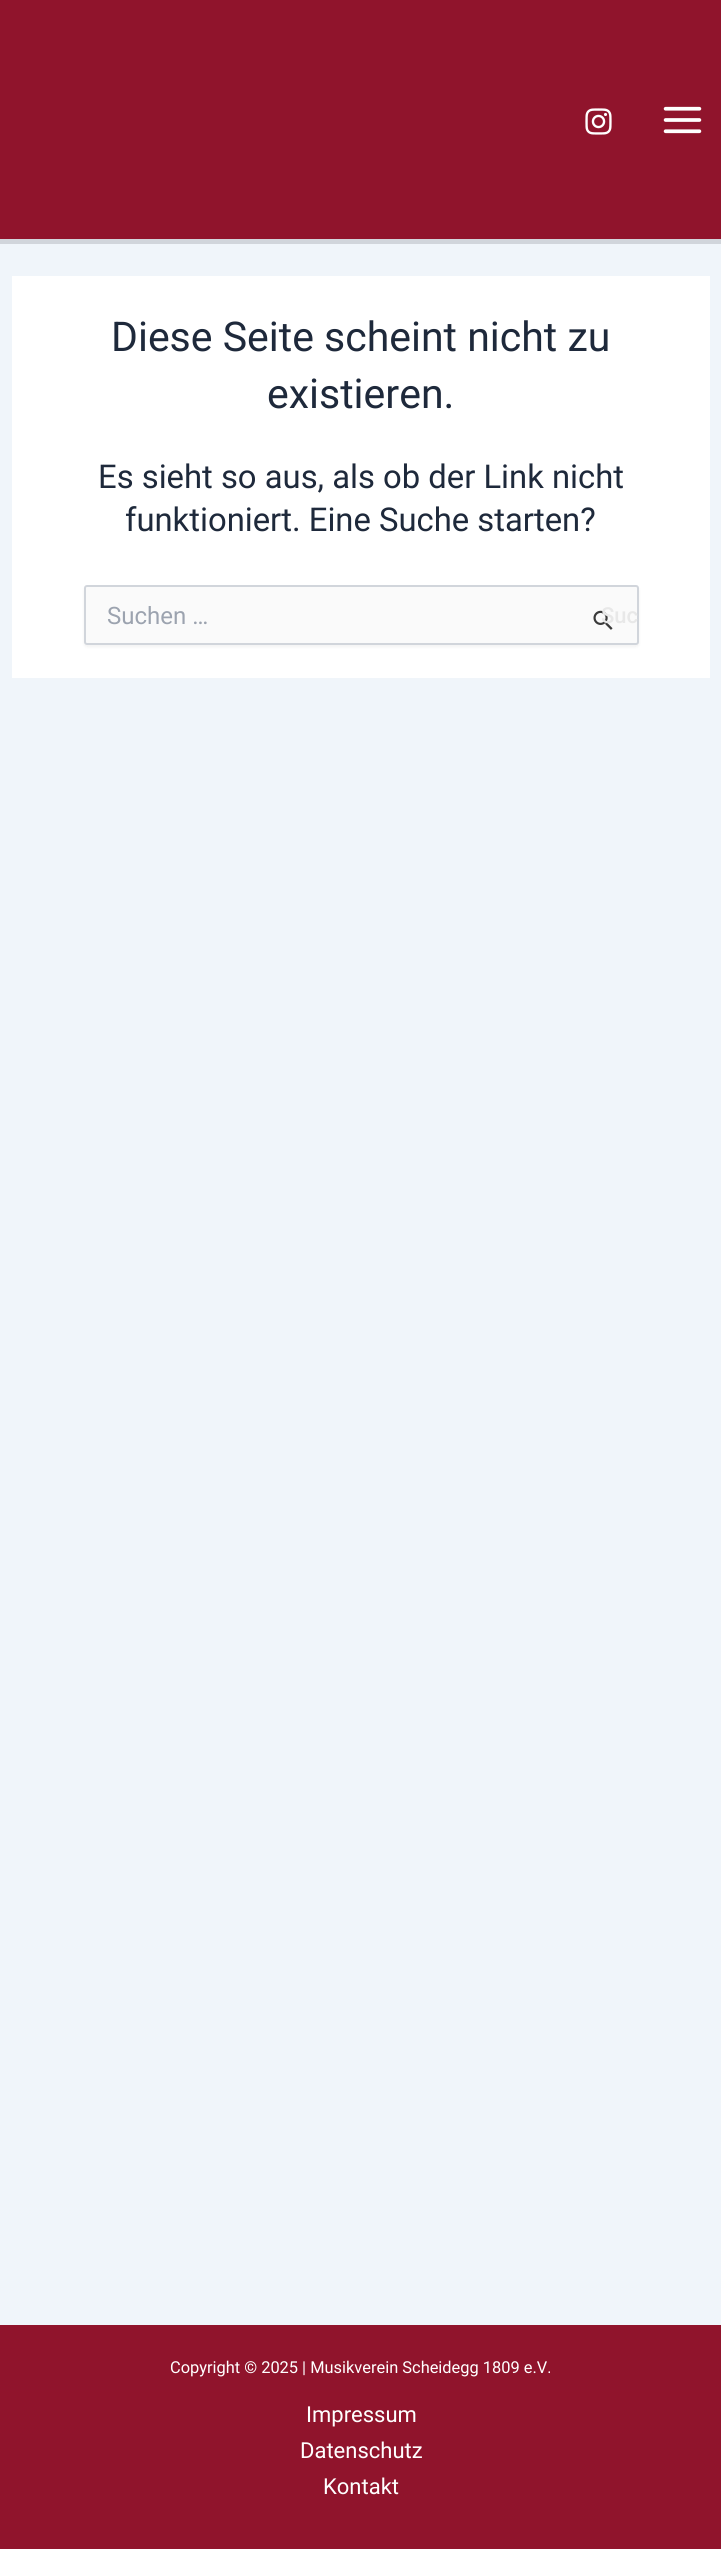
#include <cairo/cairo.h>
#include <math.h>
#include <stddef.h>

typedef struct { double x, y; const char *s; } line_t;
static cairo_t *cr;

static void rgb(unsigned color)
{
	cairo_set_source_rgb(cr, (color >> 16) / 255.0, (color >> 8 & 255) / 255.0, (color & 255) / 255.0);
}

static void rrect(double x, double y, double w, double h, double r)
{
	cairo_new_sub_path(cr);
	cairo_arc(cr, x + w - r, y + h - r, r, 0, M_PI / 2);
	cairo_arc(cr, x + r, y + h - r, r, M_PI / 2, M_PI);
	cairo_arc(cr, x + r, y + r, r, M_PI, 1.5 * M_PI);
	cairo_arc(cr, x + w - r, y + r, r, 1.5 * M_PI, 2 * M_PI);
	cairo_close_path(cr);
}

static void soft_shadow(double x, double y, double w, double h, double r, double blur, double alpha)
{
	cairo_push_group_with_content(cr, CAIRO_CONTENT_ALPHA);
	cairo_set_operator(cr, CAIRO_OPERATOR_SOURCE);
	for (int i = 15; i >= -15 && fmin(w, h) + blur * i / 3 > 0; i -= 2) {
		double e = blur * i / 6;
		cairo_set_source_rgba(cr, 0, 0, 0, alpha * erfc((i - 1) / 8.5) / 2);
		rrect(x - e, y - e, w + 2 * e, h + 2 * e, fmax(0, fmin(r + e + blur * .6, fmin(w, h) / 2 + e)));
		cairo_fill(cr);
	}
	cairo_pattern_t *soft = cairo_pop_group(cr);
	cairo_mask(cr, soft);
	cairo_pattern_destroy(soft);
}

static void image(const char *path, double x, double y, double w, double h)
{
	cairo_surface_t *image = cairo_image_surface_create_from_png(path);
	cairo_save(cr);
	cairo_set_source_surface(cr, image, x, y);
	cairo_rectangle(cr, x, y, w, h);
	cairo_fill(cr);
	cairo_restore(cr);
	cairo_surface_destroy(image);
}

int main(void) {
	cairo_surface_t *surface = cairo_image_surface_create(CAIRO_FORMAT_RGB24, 721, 2549);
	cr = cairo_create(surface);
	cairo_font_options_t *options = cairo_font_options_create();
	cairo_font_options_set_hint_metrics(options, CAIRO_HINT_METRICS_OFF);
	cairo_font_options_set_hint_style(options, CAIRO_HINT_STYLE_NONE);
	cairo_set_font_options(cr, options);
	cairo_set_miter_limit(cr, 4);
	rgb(0xf0f5fa);
	cairo_paint(cr);
	rgb(0x90142c);
	cairo_rectangle(cr, 0, 0, 721, 239);
	cairo_fill(cr);
	rgb(0xd1d5db);
	cairo_rectangle(cr, 0, 239, 721, 5);
	cairo_fill(cr);
	image("img/1.png", 585, 108, 27, 27);
	image("img/2.png", 663, 106, 39, 28);
	rgb(0xffffff);
	cairo_rectangle(cr, 12, 276, 698, 402);
	cairo_fill(cr);
	rgb(0x000000);
	soft_shadow(84, 587, 555, 60, 3, 1.5, 0.05);
	rgb(0xfafafa);
	rrect(85, 586, 553, 58, 2);
	cairo_fill_preserve(cr);
	rgb(0xd1d5db);
	cairo_stroke(cr);
	image("img/3.png", 593, 610, 20, 20);
	rgb(0x90142c);
	cairo_rectangle(cr, 0, 2325, 721, 224);
	cairo_fill(cr);
	cairo_select_font_face(cr, "Roboto", CAIRO_FONT_SLANT_NORMAL, CAIRO_FONT_WEIGHT_NORMAL);
	cairo_set_font_size(cr, 41);
	rgb(0x1e293b);
	cairo_move_to(cr, 111, 351);
	cairo_show_text(cr, "Diese Seite scheint nicht zu");
	cairo_move_to(cr, 267, 408);
	cairo_show_text(cr, "existieren.");
	cairo_set_font_size(cr, 32.8);
	cairo_move_to(cr, 98, 488);
	cairo_show_text(cr, "Es sieht so aus, als ob der Link nicht");
	cairo_move_to(cr, 125, 531);
	cairo_show_text(cr, "funktioniert. Eine Suche starten?");
	cairo_set_font_size(cr, 24);
	rgb(0x9ca3af);
	cairo_move_to(cr, 107, 624);
	cairo_show_text(cr, "Suchen …");
	cairo_select_font_face(cr, "Roboto Medium", CAIRO_FONT_SLANT_NORMAL, CAIRO_FONT_WEIGHT_NORMAL);
	cairo_set_font_size(cr, 22);
	rgb(0xe8e8e8);
	cairo_move_to(cr, 601, 623);
	cairo_show_text(cr, "Suc");
	cairo_select_font_face(cr, "Roboto", CAIRO_FONT_SLANT_NORMAL, CAIRO_FONT_WEIGHT_NORMAL);
	cairo_set_font_size(cr, 16.4);
	rgb(0xffffff);
	cairo_move_to(cr, 170, 2373);
	cairo_show_text(cr, "Copyright © 2025 | Musikverein Scheidegg 1809 e.V.");
	cairo_set_font_size(cr, 22);
	{
		static const line_t items[] = {
			{306, 2422, "Impressum"},
			{300, 2458, "Datenschutz"},
			{323, 2494, "Kontakt"},
		};
		for (size_t i = 0; i < sizeof items / sizeof *items; i++) {
			cairo_move_to(cr, items[i].x, items[i].y);
			cairo_show_text(cr, items[i].s);
		}
	}
	cairo_surface_write_to_png(surface, "page.png");
	cairo_font_options_destroy(options);
	cairo_destroy(cr);
	cairo_surface_destroy(surface);
	return 0;
}
